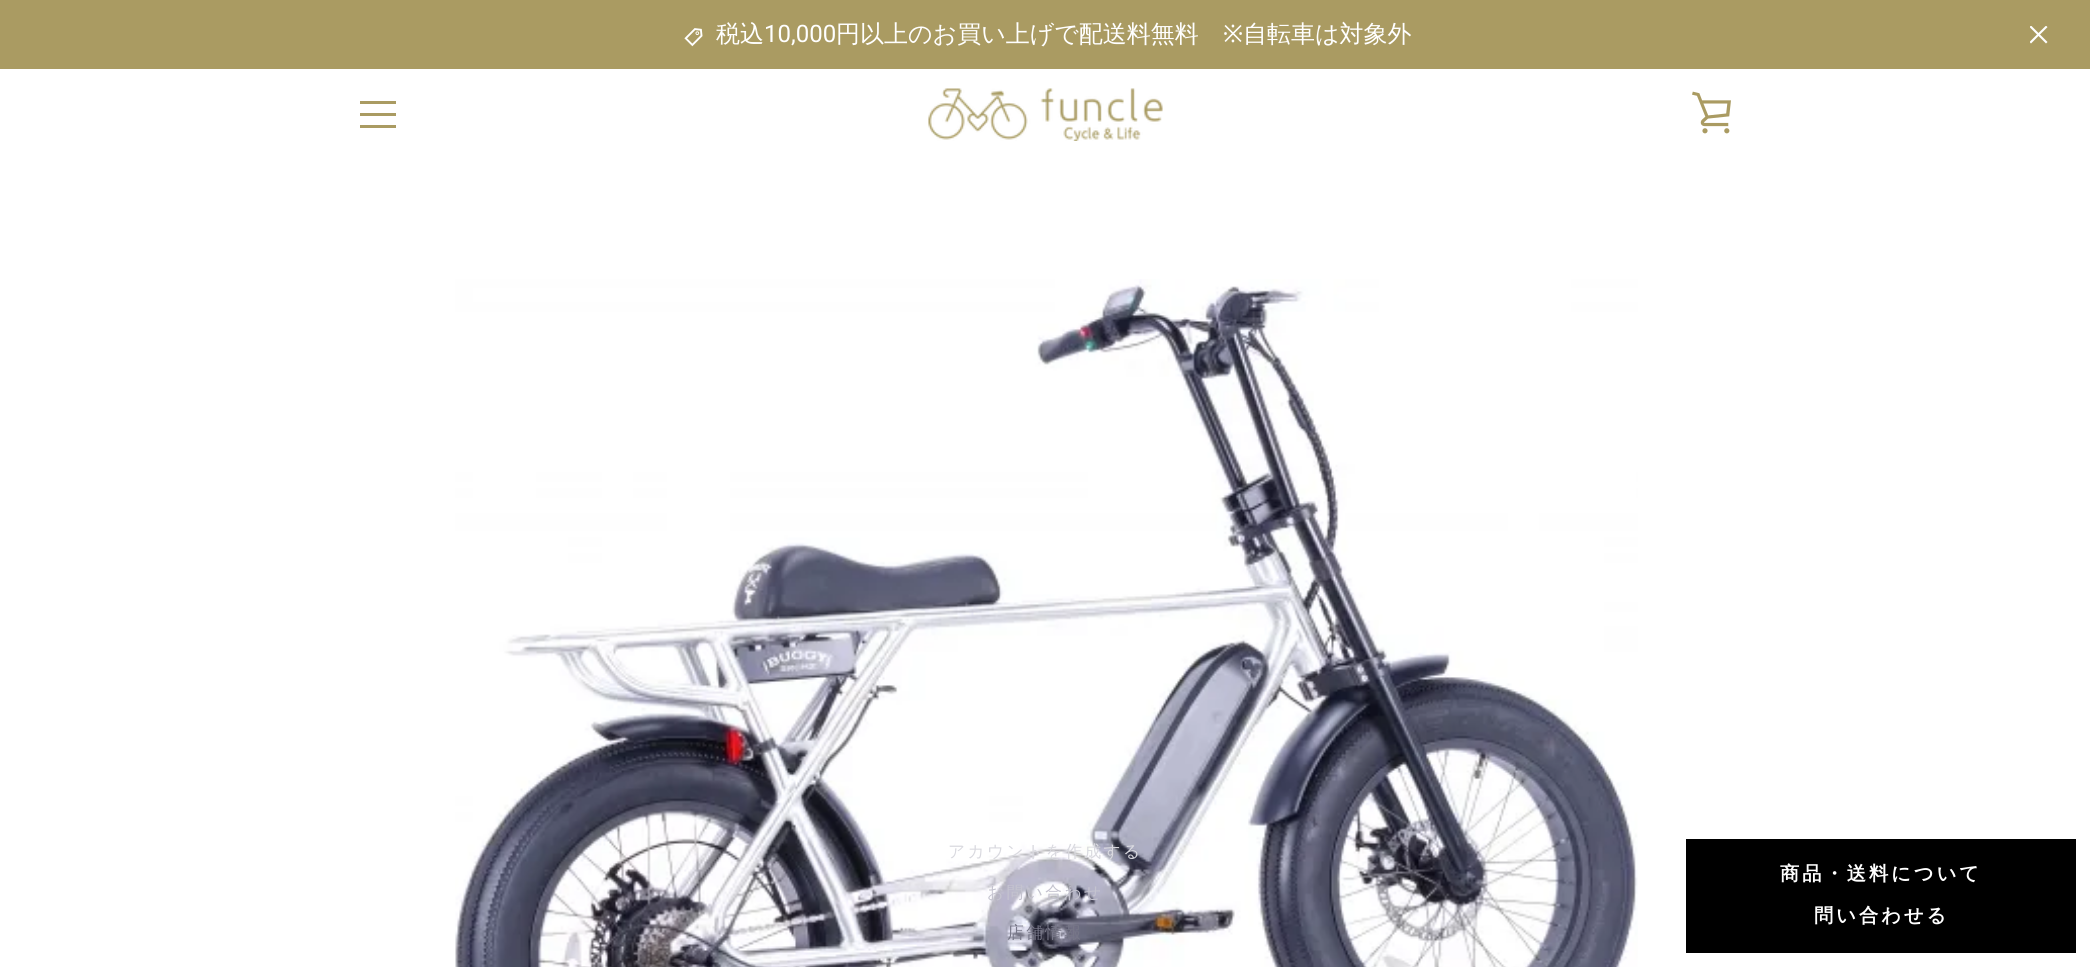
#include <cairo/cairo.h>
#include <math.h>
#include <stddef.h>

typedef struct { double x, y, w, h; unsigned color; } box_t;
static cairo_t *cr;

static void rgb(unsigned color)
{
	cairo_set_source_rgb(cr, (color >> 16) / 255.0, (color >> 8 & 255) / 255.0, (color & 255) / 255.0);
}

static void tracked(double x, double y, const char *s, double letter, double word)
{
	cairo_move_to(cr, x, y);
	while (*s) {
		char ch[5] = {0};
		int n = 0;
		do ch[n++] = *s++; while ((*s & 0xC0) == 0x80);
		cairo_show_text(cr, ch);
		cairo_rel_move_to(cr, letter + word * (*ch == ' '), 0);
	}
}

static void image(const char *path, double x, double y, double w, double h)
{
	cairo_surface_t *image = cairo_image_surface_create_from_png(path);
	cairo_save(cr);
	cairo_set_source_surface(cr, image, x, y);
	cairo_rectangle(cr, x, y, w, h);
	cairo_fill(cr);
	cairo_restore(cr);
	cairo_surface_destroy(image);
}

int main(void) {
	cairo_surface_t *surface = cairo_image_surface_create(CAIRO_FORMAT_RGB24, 2090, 967);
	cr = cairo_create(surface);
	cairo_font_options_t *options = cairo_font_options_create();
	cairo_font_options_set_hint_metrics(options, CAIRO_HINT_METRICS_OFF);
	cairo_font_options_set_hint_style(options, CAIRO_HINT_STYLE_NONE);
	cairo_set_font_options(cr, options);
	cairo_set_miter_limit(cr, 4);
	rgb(0xffffff);
	cairo_paint(cr);
	rgb(0xaa9b62);
	cairo_rectangle(cr, 0, 0, 2090, 69);
	cairo_fill(cr);
	image("img/1.png", 684, 28, 19, 19);
	image("img/2.png", 2030, 26, 18, 18);
	image("img/3.png", 928, 88, 235, 53);
	image("img/4.png", 1692, 91, 39, 43);
	{
		static const box_t items[] = {
			{360, 101, 36, 3, 0xaa9b62},
			{360, 113, 36, 3, 0xaa9b62},
			{360, 125, 36, 3, 0xaa9b62},
		};
		for (size_t i = 0; i < sizeof items / sizeof *items; i++) {
			rgb(items[i].color);
			cairo_rectangle(cr, items[i].x, items[i].y, items[i].w, items[i].h);
			cairo_fill(cr);
		}
	}
	image("img/5.png", 455, 279, 1183, 688);
	rgb(0x000000);
	cairo_rectangle(cr, 1686, 839, 390, 114);
	cairo_fill(cr);
	cairo_select_font_face(cr, "WenQuanYi Zen Hei Medium", CAIRO_FONT_SLANT_NORMAL, CAIRO_FONT_WEIGHT_NORMAL);
	cairo_set_font_size(cr, 24);
	rgb(0xffffff);
	cairo_move_to(cr, 716, 42);
	cairo_show_text(cr, "税込");
	cairo_select_font_face(cr, "Roboto", CAIRO_FONT_SLANT_NORMAL, CAIRO_FONT_WEIGHT_NORMAL);
	cairo_move_to(cr, 764, 42);
	cairo_show_text(cr, "10,000");
	cairo_select_font_face(cr, "WenQuanYi Zen Hei Medium", CAIRO_FONT_SLANT_NORMAL, CAIRO_FONT_WEIGHT_NORMAL);
	cairo_move_to(cr, 836, 42);
	cairo_show_text(cr, "円以上のお買い上げで配送料無料");
	cairo_select_font_face(cr, "Noto Sans", CAIRO_FONT_SLANT_NORMAL, CAIRO_FONT_WEIGHT_NORMAL);
	cairo_move_to(cr, 1223, 42);
	cairo_show_text(cr, "※");
	cairo_select_font_face(cr, "WenQuanYi Zen Hei Medium", CAIRO_FONT_SLANT_NORMAL, CAIRO_FONT_WEIGHT_NORMAL);
	cairo_move_to(cr, 1243, 42);
	cairo_show_text(cr, "自転車は対象外");
	cairo_set_font_size(cr, 16.75);
	rgb(0xd9d9df);
	tracked(948, 857, "アカウントを作成する", 2.4, 0);
	rgb(0xc4c3cf);
	tracked(987, 898, "お問い合わせ", 2.4, 0);
	rgb(0x777788);
	tracked(1007, 938, "店舗情報", 2.4, 0);
	cairo_select_font_face(cr, "WenQuanYi Zen Hei", CAIRO_FONT_SLANT_NORMAL, CAIRO_FONT_WEIGHT_BOLD);
	cairo_set_font_size(cr, 19.25);
	rgb(0xffffff);
	tracked(1780, 880, "商品・送料について", 3, 0);
	tracked(1814, 922, "問い合わせる", 3, 0);
	cairo_surface_write_to_png(surface, "page.png");
	cairo_font_options_destroy(options);
	cairo_destroy(cr);
	cairo_surface_destroy(surface);
	return 0;
}
